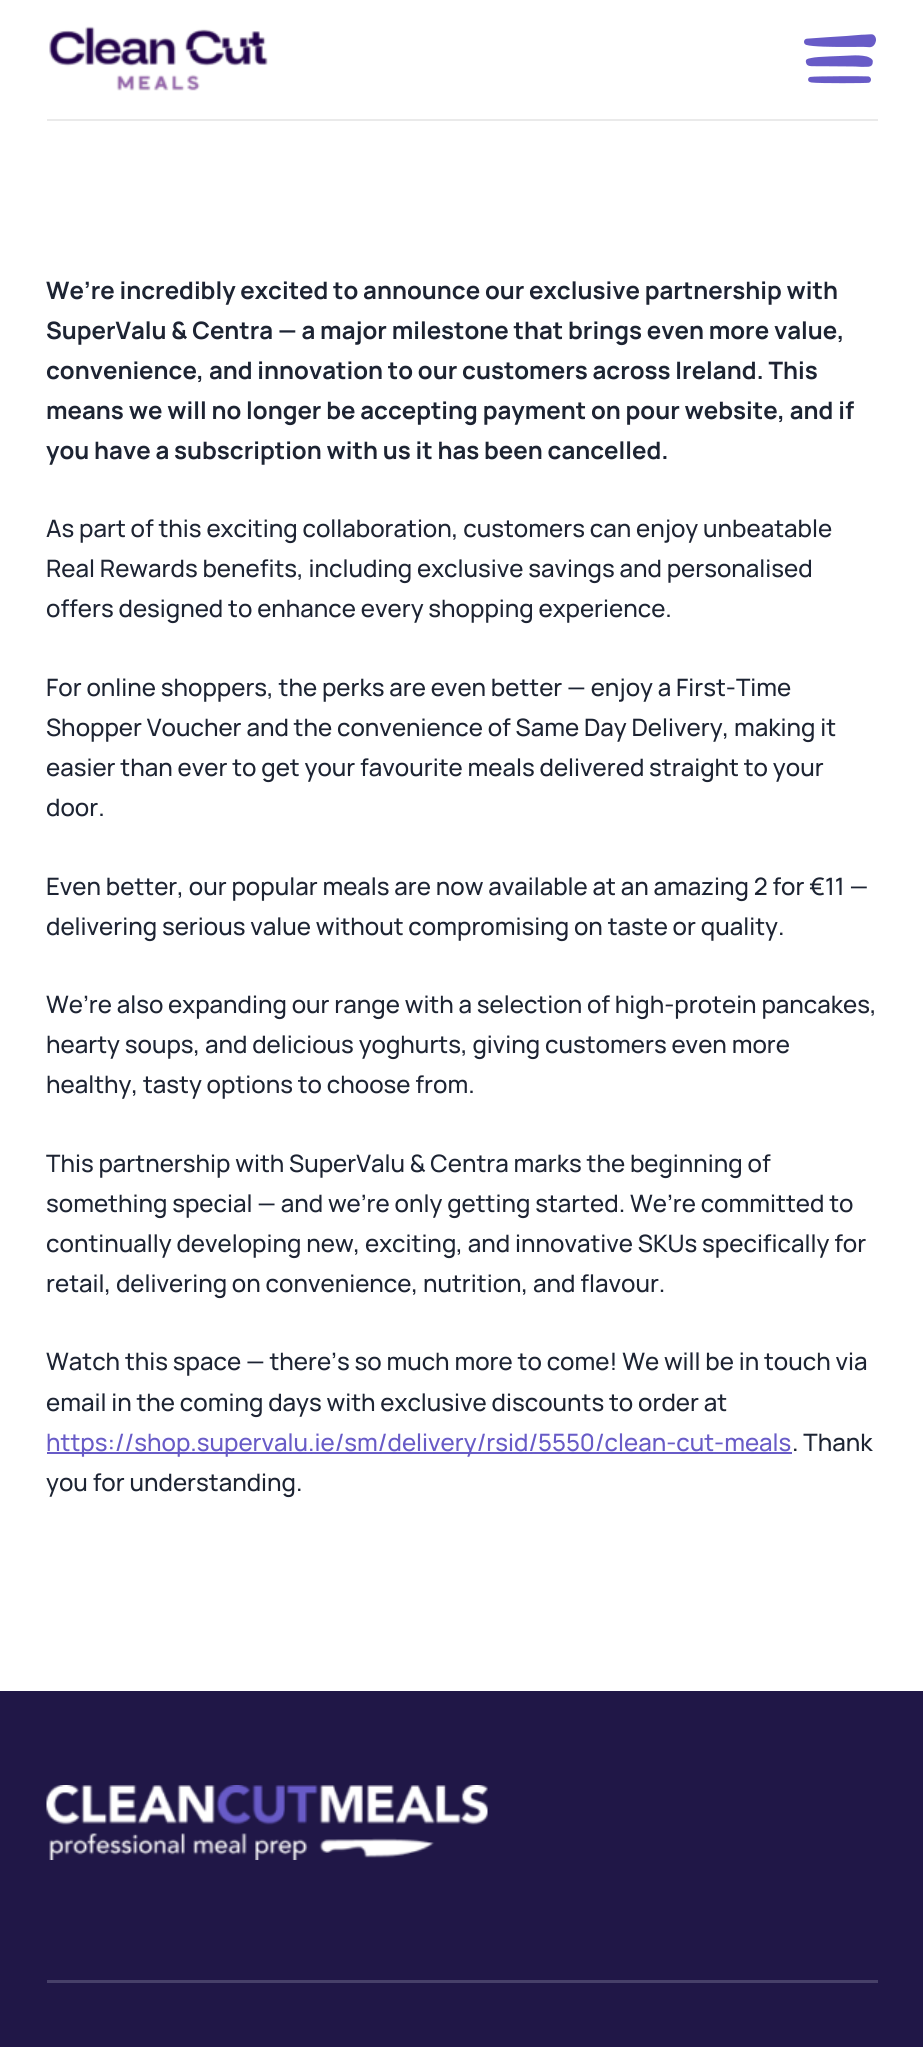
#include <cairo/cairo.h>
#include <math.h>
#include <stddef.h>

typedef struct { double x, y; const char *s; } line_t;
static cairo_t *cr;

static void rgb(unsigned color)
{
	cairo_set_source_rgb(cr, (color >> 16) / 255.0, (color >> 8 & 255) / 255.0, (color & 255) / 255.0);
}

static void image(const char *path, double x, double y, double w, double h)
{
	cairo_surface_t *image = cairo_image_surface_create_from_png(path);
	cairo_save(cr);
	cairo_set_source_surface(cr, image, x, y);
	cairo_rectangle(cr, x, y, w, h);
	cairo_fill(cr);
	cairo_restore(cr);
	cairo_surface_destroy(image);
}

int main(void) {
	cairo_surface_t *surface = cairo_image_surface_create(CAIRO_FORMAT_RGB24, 923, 2047);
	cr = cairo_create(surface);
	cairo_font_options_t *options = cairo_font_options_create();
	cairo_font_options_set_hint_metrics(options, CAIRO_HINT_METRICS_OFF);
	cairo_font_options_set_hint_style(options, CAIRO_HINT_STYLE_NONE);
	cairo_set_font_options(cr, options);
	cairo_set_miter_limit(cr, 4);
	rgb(0xffffff);
	cairo_paint(cr);
	rgb(0xeaeaea);
	cairo_rectangle(cr, 47, 119, 831, 2);
	cairo_fill(cr);
	image("img/1.png", 49, 26, 219, 65);
	image("img/2.png", 804, 34, 72, 50);
	rgb(0x685bc7);
	cairo_rectangle(cr, 47, 1452, 745, 2);
	cairo_fill(cr);
	rgb(0x201747);
	cairo_rectangle(cr, 0, 1691, 923, 356);
	cairo_fill(cr);
	image("img/3.png", 46, 1785, 442, 75);
	rgb(0x474069);
	cairo_rectangle(cr, 47, 1980, 831, 3);
	cairo_fill(cr);
	cairo_select_font_face(cr, "Manrope", CAIRO_FONT_SLANT_NORMAL, CAIRO_FONT_WEIGHT_BOLD);
	cairo_set_font_size(cr, 24);
	rgb(0x1d2433);
	{
		static const line_t items[] = {
			{46, 299, "We’re incredibly excited to announce our exclusive partnership with"},
			{46, 339, "SuperValu & Centra — a major milestone that brings even more value,"},
			{46, 379, "convenience, and innovation to our customers across Ireland. This"},
			{46, 419, "means we will no longer be accepting payment on pour website, and if"},
			{46, 459, "you have a subscription with us it has been cancelled."},
		};
		for (size_t i = 0; i < sizeof items / sizeof *items; i++) {
			cairo_move_to(cr, items[i].x, items[i].y);
			cairo_show_text(cr, items[i].s);
		}
	}
	cairo_select_font_face(cr, "Manrope Medium", CAIRO_FONT_SLANT_NORMAL, CAIRO_FONT_WEIGHT_NORMAL);
	{
		static const line_t items[] = {
			{46, 537, "As part of this exciting collaboration, customers can enjoy unbeatable"},
			{46, 577, "Real Rewards benefits, including exclusive savings and personalised"},
			{46, 617, "offers designed to enhance every shopping experience."},
			{46, 696, "For online shoppers, the perks are even better — enjoy a First-Time"},
			{46, 736, "Shopper Voucher and the convenience of Same Day Delivery, making it"},
			{46, 776, "easier than ever to get your favourite meals delivered straight to your"},
			{46, 816, "door."},
			{46, 895, "Even better, our popular meals are now available at an amazing 2 for €11 —"},
			{46, 935, "delivering serious value without compromising on taste or quality."},
			{46, 1013, "We’re also expanding our range with a selection of high-protein pancakes,"},
			{46, 1053, "hearty soups, and delicious yoghurts, giving customers even more"},
			{46, 1093, "healthy, tasty options to choose from."},
			{46, 1172, "This partnership with SuperValu & Centra marks the beginning of"},
			{46, 1212, "something special — and we’re only getting started. We’re committed to"},
			{46, 1252, "continually developing new, exciting, and innovative SKUs specifically for"},
			{46, 1292, "retail, delivering on convenience, nutrition, and flavour."},
			{46, 1370, "Watch this space — there’s so much more to come! We will be in touch via"},
			{46, 1411, "email in the coming days with exclusive discounts to order at"},
		};
		for (size_t i = 0; i < sizeof items / sizeof *items; i++) {
			cairo_move_to(cr, items[i].x, items[i].y);
			cairo_show_text(cr, items[i].s);
		}
	}
	rgb(0x685bc7);
	cairo_move_to(cr, 46, 1451);
	cairo_show_text(cr, "https://shop.supervalu.ie/sm/delivery/rsid/5550/clean-cut-meals");
	rgb(0x1d2433);
	cairo_move_to(cr, 792, 1451);
	cairo_show_text(cr, ". Thank");
	cairo_move_to(cr, 46, 1491);
	cairo_show_text(cr, "you for understanding.");
	cairo_surface_write_to_png(surface, "page.png");
	cairo_font_options_destroy(options);
	cairo_destroy(cr);
	cairo_surface_destroy(surface);
	return 0;
}
